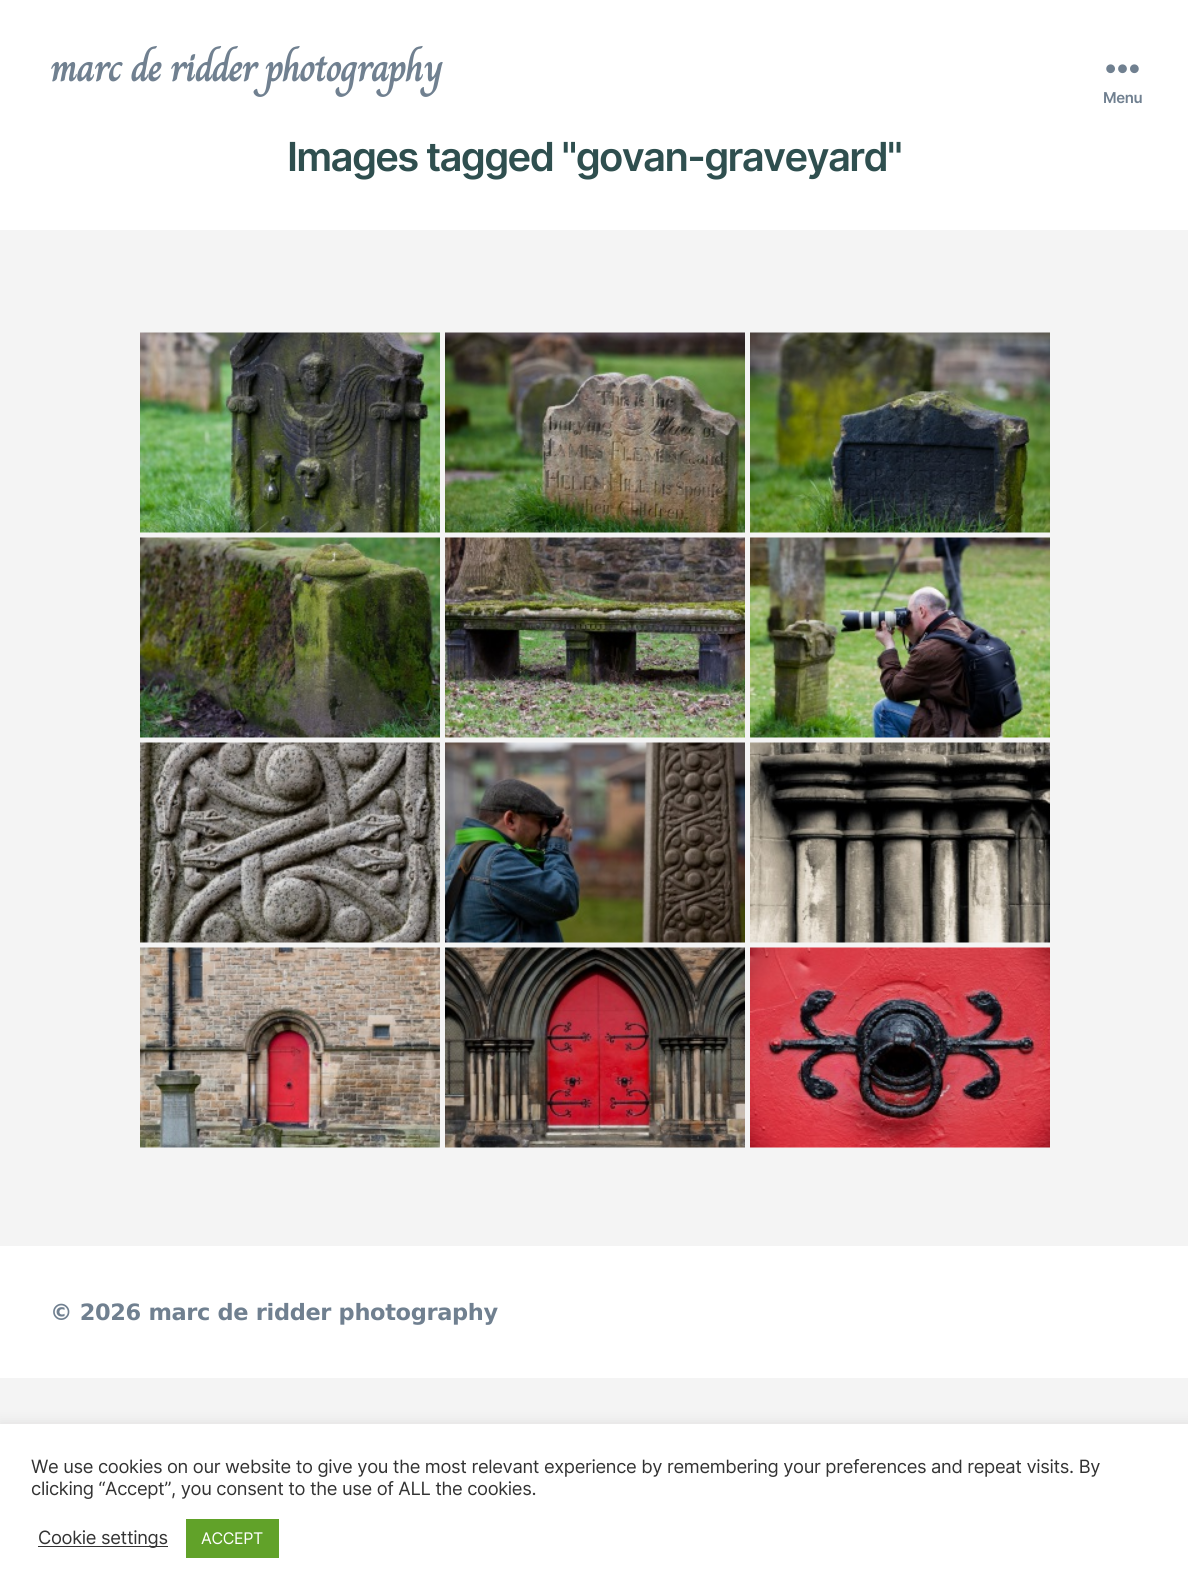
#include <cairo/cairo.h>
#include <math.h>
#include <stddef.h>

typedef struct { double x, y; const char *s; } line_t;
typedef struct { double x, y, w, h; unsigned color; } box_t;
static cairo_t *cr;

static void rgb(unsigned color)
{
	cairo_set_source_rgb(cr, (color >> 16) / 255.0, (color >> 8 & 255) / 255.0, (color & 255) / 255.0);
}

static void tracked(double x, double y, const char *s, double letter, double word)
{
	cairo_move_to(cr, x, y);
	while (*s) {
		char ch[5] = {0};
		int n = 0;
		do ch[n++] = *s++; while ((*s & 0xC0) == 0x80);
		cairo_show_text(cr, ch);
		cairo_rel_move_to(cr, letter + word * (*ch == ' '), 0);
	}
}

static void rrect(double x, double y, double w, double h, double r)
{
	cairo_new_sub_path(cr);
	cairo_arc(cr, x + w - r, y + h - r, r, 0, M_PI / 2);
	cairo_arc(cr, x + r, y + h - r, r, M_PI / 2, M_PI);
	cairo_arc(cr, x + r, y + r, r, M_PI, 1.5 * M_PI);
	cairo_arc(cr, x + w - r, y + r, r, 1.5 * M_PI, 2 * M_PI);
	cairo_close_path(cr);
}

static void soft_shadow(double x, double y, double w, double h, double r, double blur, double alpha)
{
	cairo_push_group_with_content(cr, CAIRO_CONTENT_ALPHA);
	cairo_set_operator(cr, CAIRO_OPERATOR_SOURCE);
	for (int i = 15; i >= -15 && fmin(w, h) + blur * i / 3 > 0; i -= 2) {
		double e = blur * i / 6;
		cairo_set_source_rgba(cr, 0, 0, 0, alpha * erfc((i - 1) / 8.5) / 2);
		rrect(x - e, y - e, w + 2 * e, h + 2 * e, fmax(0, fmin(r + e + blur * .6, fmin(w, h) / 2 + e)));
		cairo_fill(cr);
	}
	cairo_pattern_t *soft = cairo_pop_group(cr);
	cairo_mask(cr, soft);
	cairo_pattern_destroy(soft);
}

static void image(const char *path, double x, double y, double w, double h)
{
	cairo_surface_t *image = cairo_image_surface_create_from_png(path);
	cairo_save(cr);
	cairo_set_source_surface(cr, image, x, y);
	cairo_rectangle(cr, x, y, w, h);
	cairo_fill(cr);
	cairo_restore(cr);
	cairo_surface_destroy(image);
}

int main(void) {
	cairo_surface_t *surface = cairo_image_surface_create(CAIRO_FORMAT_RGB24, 1188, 1595);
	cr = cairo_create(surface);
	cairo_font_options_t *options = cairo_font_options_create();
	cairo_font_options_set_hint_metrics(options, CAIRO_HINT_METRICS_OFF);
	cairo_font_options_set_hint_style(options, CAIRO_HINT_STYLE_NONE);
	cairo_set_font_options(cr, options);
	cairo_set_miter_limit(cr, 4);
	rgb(0xf4f4f4);
	cairo_paint(cr);
	rgb(0xffffff);
	cairo_rectangle(cr, 0, 0, 1188, 230);
	cairo_fill(cr);
	image("img/1.png", 1106, 64, 33, 10);
	image("img/2.png", 140, 332, 300, 201);
	image("img/3.png", 445, 332, 300, 201);
	image("img/4.png", 750, 332, 300, 201);
	image("img/5.png", 140, 537, 300, 201);
	image("img/6.png", 445, 537, 300, 201);
	image("img/7.png", 750, 537, 300, 201);
	image("img/8.png", 140, 742, 300, 201);
	image("img/9.png", 445, 742, 300, 201);
	image("img/10.png", 750, 742, 300, 201);
	image("img/11.png", 140, 947, 300, 201);
	image("img/12.png", 445, 947, 300, 201);
	image("img/13.png", 750, 947, 300, 201);
	cairo_rectangle(cr, 0, 1246, 1188, 132);
	cairo_fill(cr);
	rgb(0xacabab);
	soft_shadow(0, 1423, 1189, 171, 0, 6, 0.3);
	{
		static const box_t items[] = {
			{0, 1424, 1188, 171, 0xffffff},
			{38, 1546, 130, 1, 0x333333},
			{186, 1519, 93, 39, 0x61a229},
		};
		for (size_t i = 0; i < sizeof items / sizeof *items; i++) {
			rgb(items[i].color);
			cairo_rectangle(cr, items[i].x, items[i].y, items[i].w, items[i].h);
			cairo_fill(cr);
		}
	}
	cairo_select_font_face(cr, "Charm", CAIRO_FONT_SLANT_NORMAL, CAIRO_FONT_WEIGHT_BOLD);
	cairo_set_font_size(cr, 40);
	rgb(0x708090);
	tracked(50, 81, "marc de ridder photography", -1.65, 0);
	cairo_select_font_face(cr, "Inter SemiBold", CAIRO_FONT_SLANT_NORMAL, CAIRO_FONT_WEIGHT_NORMAL);
	cairo_set_font_size(cr, 15);
	tracked(1103, 103, "Menu", -0.34, 0);
	cairo_set_font_size(cr, 40);
	rgb(0x2f4f4f);
	tracked(287, 171, "Images tagged \"govan-graveyard\"", -1.65, 0);
	cairo_select_font_face(cr, "DejaVu Sans", CAIRO_FONT_SLANT_NORMAL, CAIRO_FONT_WEIGHT_BOLD);
	cairo_set_font_size(cr, 22.5);
	rgb(0x708090);
	tracked(50, 1320, "© 2026 marc de ridder photography", -0.34, 0);
	cairo_select_font_face(cr, "Inter", CAIRO_FONT_SLANT_NORMAL, CAIRO_FONT_WEIGHT_NORMAL);
	cairo_set_font_size(cr, 18.33);
	rgb(0x333333);
	{
		static const line_t items[] = {
			{31, 1473, "We use cookies on our website to give you the most relevant experience by remembering your preferences and repeat visits. By"},
			{31, 1495, "clicking “Accept”, you consent to the use of ALL the cookies."},
			{38, 1544, "Cookie settings"},
		};
		for (size_t i = 0; i < sizeof items / sizeof *items; i++) {
			tracked(items[i].x, items[i].y, items[i].s, -0.34, 0);
		}
	}
	cairo_set_font_size(cr, 16);
	rgb(0xffffff);
	tracked(201, 1544, "ACCEPT", -0.34, 0);
	cairo_surface_write_to_png(surface, "page.png");
	cairo_font_options_destroy(options);
	cairo_destroy(cr);
	cairo_surface_destroy(surface);
	return 0;
}
